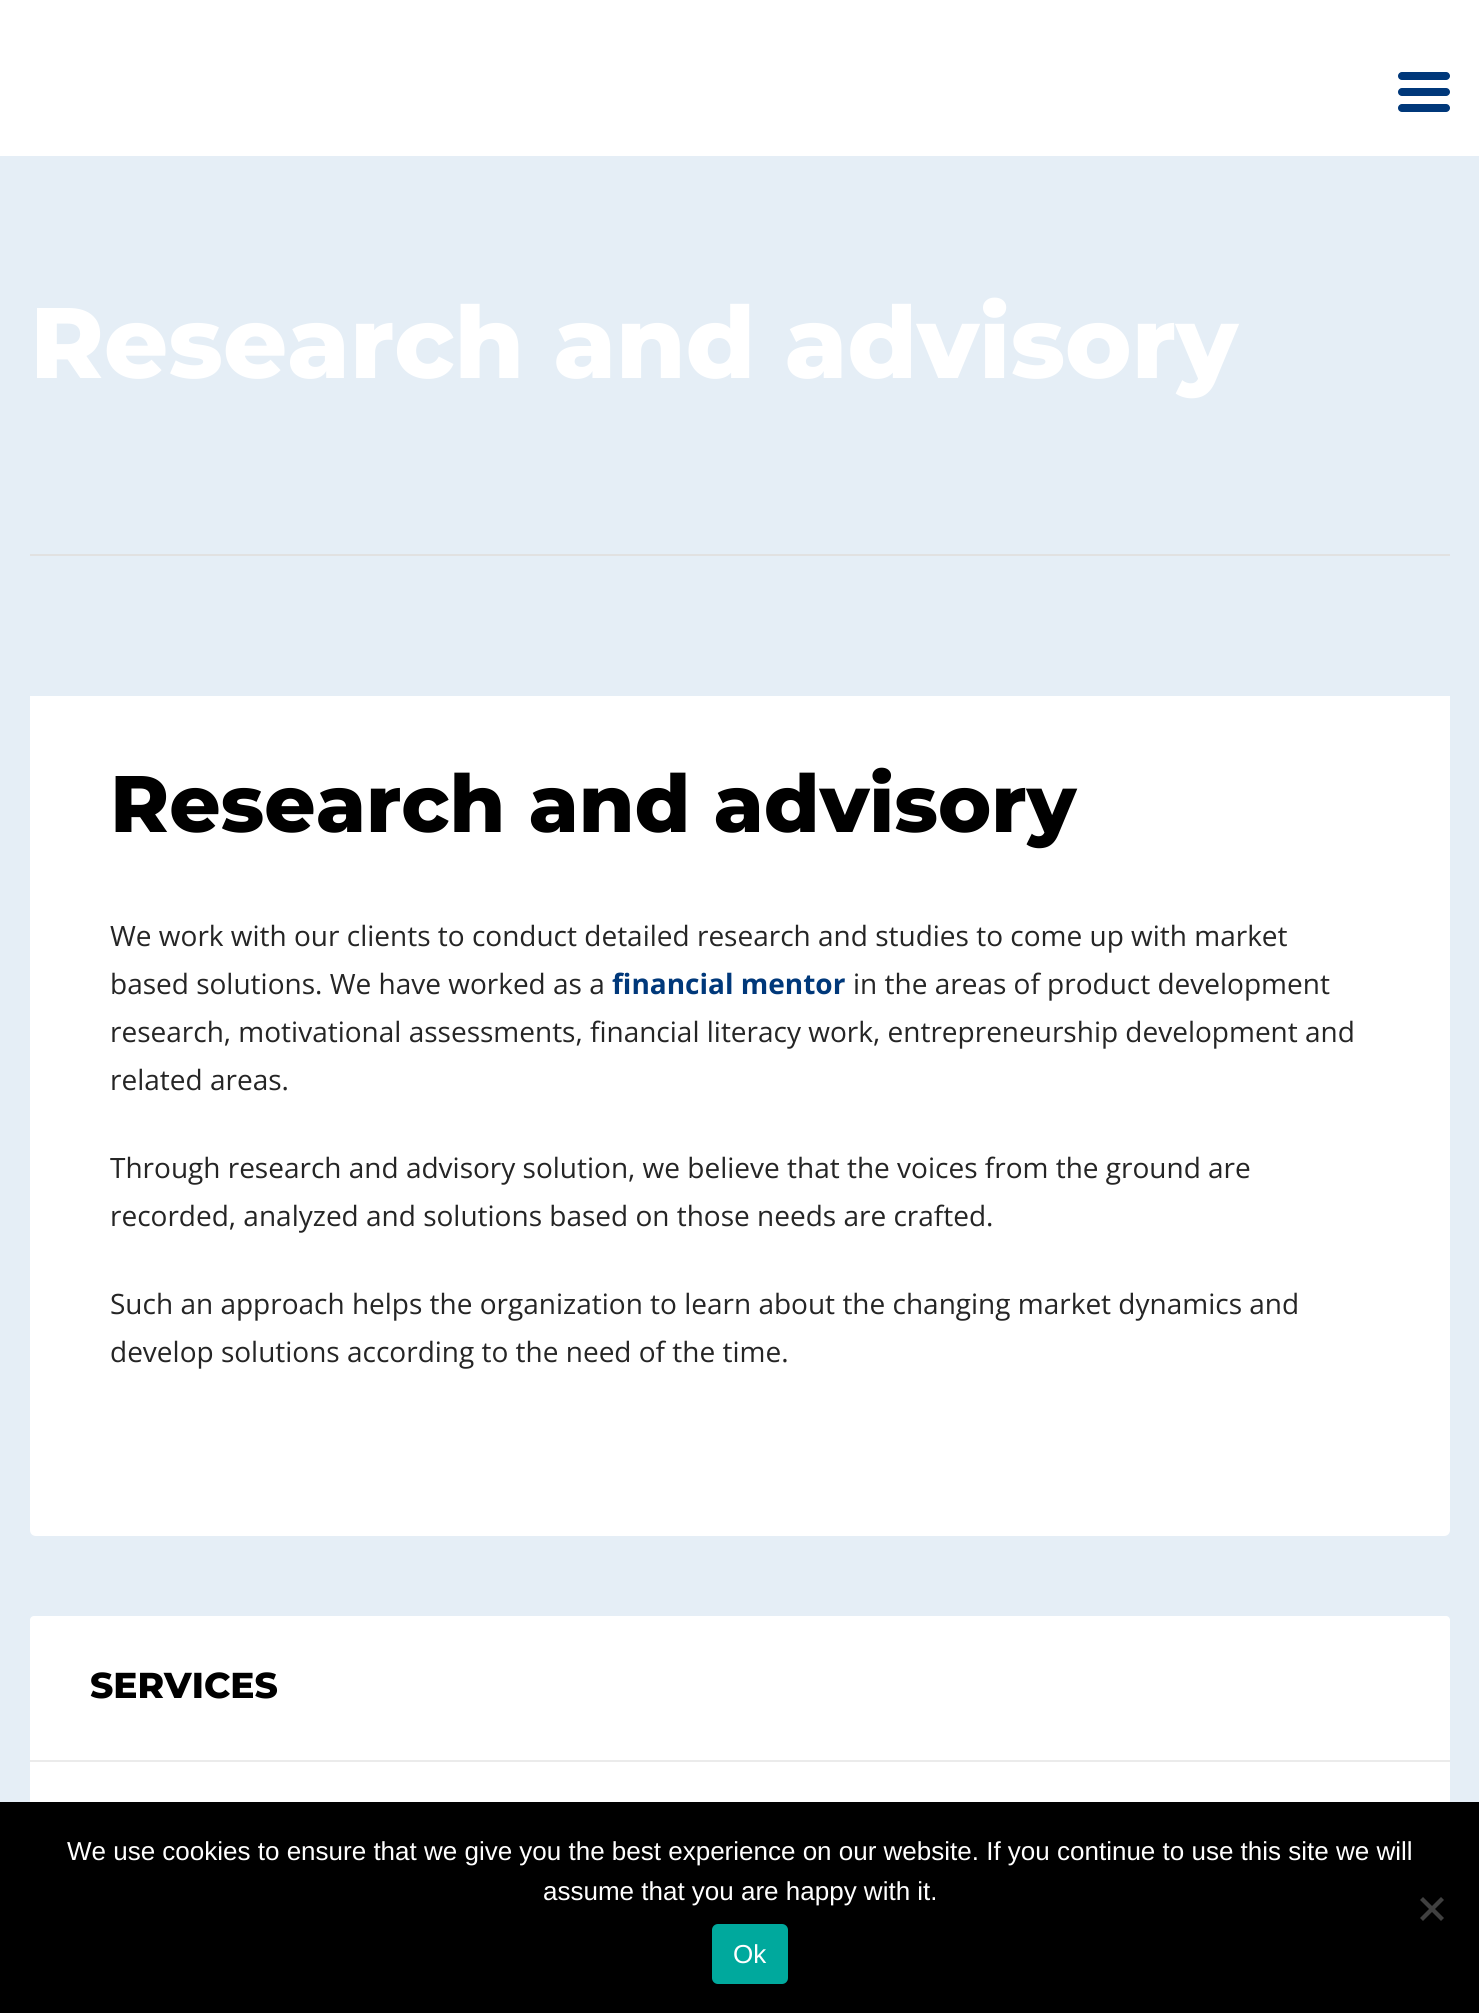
#include <cairo/cairo.h>
#include <math.h>
#include <stddef.h>

typedef struct { double x, y; const char *s; } line_t;
static cairo_t *cr;

static void rgb(unsigned color)
{
	cairo_set_source_rgb(cr, (color >> 16) / 255.0, (color >> 8 & 255) / 255.0, (color & 255) / 255.0);
}

static void rrect(double x, double y, double w, double h, double r)
{
	cairo_new_sub_path(cr);
	cairo_arc(cr, x + w - r, y + h - r, r, 0, M_PI / 2);
	cairo_arc(cr, x + r, y + h - r, r, M_PI / 2, M_PI);
	cairo_arc(cr, x + r, y + r, r, M_PI, 1.5 * M_PI);
	cairo_arc(cr, x + w - r, y + r, r, 1.5 * M_PI, 2 * M_PI);
	cairo_close_path(cr);
}

int main(void) {
	cairo_surface_t *surface = cairo_image_surface_create(CAIRO_FORMAT_RGB24, 1479, 2013);
	cr = cairo_create(surface);
	cairo_font_options_t *options = cairo_font_options_create();
	cairo_font_options_set_hint_metrics(options, CAIRO_HINT_METRICS_OFF);
	cairo_font_options_set_hint_style(options, CAIRO_HINT_STYLE_NONE);
	cairo_set_font_options(cr, options);
	cairo_set_miter_limit(cr, 4);
	rgb(0xffffff);
	cairo_paint(cr);
	rgb(0x00387a);
	rrect(1398, 88, 52, 8, 4);
	cairo_fill(cr);
	rrect(1398, 72, 52, 8, 4);
	cairo_fill(cr);
	rrect(1398, 104, 52, 8, 4);
	cairo_fill(cr);
	rgb(0xe5eef6);
	cairo_rectangle(cr, 0, 156, 1479, 1646);
	cairo_fill(cr);
	rgb(0xe1e1e1);
	cairo_rectangle(cr, 30, 554, 1420, 2);
	cairo_fill(cr);
	rgb(0xffffff);
	cairo_new_path(cr);
	cairo_move_to(cr, 30, 696);
	cairo_line_to(cr, 1450, 696);
	cairo_line_to(cr, 1450, 1530);
	cairo_curve_to(cr, 1450, 1533.5, 1447.5, 1536, 1444, 1536);
	cairo_line_to(cr, 36, 1536);
	cairo_curve_to(cr, 32.5, 1536, 30, 1533.5, 30, 1530);
	cairo_close_path(cr);
	cairo_fill(cr);
	rrect(30, 1616, 1420, 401, 4);
	cairo_fill(cr);
	rgb(0xebebeb);
	cairo_rectangle(cr, 30, 1760, 1420, 2);
	cairo_fill(cr);
	rgb(0x000000);
	cairo_rectangle(cr, 0, 1802, 1479, 211);
	cairo_fill(cr);
	rgb(0x404040);
	cairo_new_path(cr);
	cairo_move_to(cr, 1441, 1897);
	cairo_line_to(cr, 1444, 1900);
	cairo_line_to(cr, 1423, 1921);
	cairo_line_to(cr, 1420, 1918);
	cairo_close_path(cr);
	cairo_fill(cr);
	cairo_new_path(cr);
	cairo_move_to(cr, 1420, 1900);
	cairo_line_to(cr, 1423, 1897);
	cairo_line_to(cr, 1444, 1918);
	cairo_line_to(cr, 1441, 1921);
	cairo_close_path(cr);
	cairo_fill(cr);
	rgb(0x00a99d);
	rrect(712, 1924, 76, 60, 6);
	cairo_fill(cr);
	cairo_select_font_face(cr, "Montserrat ExtraBold", CAIRO_FONT_SLANT_NORMAL, CAIRO_FONT_WEIGHT_NORMAL);
	cairo_set_font_size(cr, 100);
	rgb(0xffffff);
	cairo_move_to(cr, 30, 378);
	cairo_show_text(cr, "Research and advisory");
	cairo_set_font_size(cr, 80);
	rgb(0x000000);
	cairo_move_to(cr, 110, 832);
	cairo_show_text(cr, "Research and advisory");
	cairo_select_font_face(cr, "Open Sans", CAIRO_FONT_SLANT_NORMAL, CAIRO_FONT_WEIGHT_NORMAL);
	cairo_set_font_size(cr, 28);
	rgb(0x252525);
	cairo_move_to(cr, 110, 946);
	cairo_show_text(cr, "We work with our clients to conduct detailed research and studies to come up with market");
	cairo_move_to(cr, 110, 994);
	cairo_show_text(cr, "based solutions. We have worked as a");
	cairo_select_font_face(cr, "Open Sans", CAIRO_FONT_SLANT_NORMAL, CAIRO_FONT_WEIGHT_BOLD);
	rgb(0x00387a);
	cairo_move_to(cr, 612, 994);
	cairo_show_text(cr, "financial mentor");
	cairo_select_font_face(cr, "Open Sans", CAIRO_FONT_SLANT_NORMAL, CAIRO_FONT_WEIGHT_NORMAL);
	rgb(0x252525);
	{
		static const line_t items[] = {
			{853, 994, "in the areas of product development"},
			{110, 1042, "research, motivational assessments, financial literacy work, entrepreneurship development and"},
			{110, 1090, "related areas."},
			{110, 1178, "Through research and advisory solution, we believe that the voices from the ground are"},
			{110, 1226, "recorded, analyzed and solutions based on those needs are crafted."},
			{110, 1314, "Such an approach helps the organization to learn about the changing market dynamics and"},
			{110, 1362, "develop solutions according to the need of the time."},
		};
		for (size_t i = 0; i < sizeof items / sizeof *items; i++) {
			cairo_move_to(cr, items[i].x, items[i].y);
			cairo_show_text(cr, items[i].s);
		}
	}
	cairo_select_font_face(cr, "Montserrat ExtraBold", CAIRO_FONT_SLANT_NORMAL, CAIRO_FONT_WEIGHT_NORMAL);
	cairo_set_font_size(cr, 36);
	rgb(0x000000);
	cairo_move_to(cr, 90, 1698);
	cairo_show_text(cr, "SERVICES");
	cairo_select_font_face(cr, "Liberation Sans", CAIRO_FONT_SLANT_NORMAL, CAIRO_FONT_WEIGHT_NORMAL);
	cairo_set_font_size(cr, 26);
	rgb(0xffffff);
	{
		static const line_t items[] = {
			{67, 1860, "We use cookies to ensure that we give you the best experience on our website. If you continue to use this site we will"},
			{543, 1900, "assume that you are happy with it."},
			{733, 1963, "Ok"},
		};
		for (size_t i = 0; i < sizeof items / sizeof *items; i++) {
			cairo_move_to(cr, items[i].x, items[i].y);
			cairo_show_text(cr, items[i].s);
		}
	}
	cairo_surface_write_to_png(surface, "page.png");
	cairo_font_options_destroy(options);
	cairo_destroy(cr);
	cairo_surface_destroy(surface);
	return 0;
}
